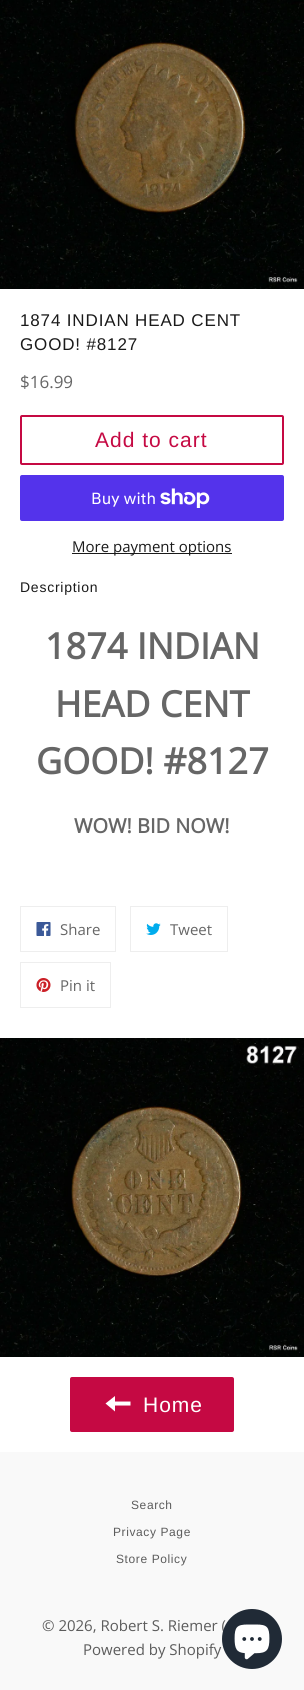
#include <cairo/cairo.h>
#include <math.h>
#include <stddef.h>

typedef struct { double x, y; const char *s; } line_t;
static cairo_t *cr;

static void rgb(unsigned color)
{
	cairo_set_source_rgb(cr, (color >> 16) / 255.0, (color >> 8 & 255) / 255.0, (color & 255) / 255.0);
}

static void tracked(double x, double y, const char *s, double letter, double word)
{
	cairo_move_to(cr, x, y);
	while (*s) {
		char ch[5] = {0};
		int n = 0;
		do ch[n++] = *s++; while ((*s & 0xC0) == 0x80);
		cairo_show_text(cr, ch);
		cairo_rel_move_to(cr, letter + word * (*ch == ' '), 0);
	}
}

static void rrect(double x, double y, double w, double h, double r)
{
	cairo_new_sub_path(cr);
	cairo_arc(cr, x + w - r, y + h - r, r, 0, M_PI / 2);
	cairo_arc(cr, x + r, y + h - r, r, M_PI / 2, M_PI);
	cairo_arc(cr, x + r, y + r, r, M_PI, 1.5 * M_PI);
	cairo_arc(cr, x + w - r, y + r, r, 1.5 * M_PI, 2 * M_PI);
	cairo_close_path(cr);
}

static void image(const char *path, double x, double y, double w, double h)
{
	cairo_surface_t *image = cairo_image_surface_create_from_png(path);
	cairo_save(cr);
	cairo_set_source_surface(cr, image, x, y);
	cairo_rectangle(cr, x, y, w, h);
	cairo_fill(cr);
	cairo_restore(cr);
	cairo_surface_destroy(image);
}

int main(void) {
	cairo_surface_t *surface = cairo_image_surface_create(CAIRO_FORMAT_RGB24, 304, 1690);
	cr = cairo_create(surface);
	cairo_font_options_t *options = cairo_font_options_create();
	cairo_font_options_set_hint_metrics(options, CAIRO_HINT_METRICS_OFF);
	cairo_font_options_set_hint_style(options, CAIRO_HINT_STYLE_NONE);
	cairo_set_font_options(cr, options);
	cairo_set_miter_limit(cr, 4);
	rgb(0xffffff);
	cairo_paint(cr);
	image("img/1.png", 0, 0, 304, 289);
	rrect(21, 416, 262, 48, 1);
	rgb(0xc50943);
	cairo_stroke(cr);
	rgb(0x5433eb);
	rrect(20, 475, 264, 46, 2);
	cairo_fill(cr);
	image("img/2.png", 160, 488, 50, 20);
	rgb(0x1a1a1a);
	cairo_rectangle(cr, 72, 553, 160, 1);
	cairo_fill(cr);
	cairo_rectangle(cr, 20.5, 906.5, 95, 45);
	rgb(0xeeeeee);
	cairo_set_line_width(cr, 1);
	cairo_stroke(cr);
	image("img/3.png", 36, 922, 15, 14);
	cairo_rectangle(cr, 130.5, 906.5, 97, 45);
	cairo_stroke(cr);
	image("img/4.png", 146, 923, 15, 12);
	cairo_rectangle(cr, 20.5, 962.5, 90, 45);
	cairo_stroke(cr);
	image("img/5.png", 36, 978, 15, 14);
	image("img/6.png", 0, 1038, 304, 319);
	rgb(0xc50943);
	rrect(70, 1377, 164, 55, 2);
	cairo_fill(cr);
	rgb(0xffffff);
	cairo_new_path(cr);
	cairo_move_to(cr, 115, 1401.5);
	cairo_line_to(cr, 115, 1396);
	cairo_line_to(cr, 105.5, 1403.5);
	cairo_line_to(cr, 115, 1411.5);
	cairo_line_to(cr, 115, 1405.5);
	cairo_line_to(cr, 130.5, 1405.5);
	cairo_line_to(cr, 130.5, 1401.5);
	cairo_close_path(cr);
	cairo_fill(cr);
	rgb(0xf9f9f9);
	cairo_rectangle(cr, 0, 1452, 304, 238);
	cairo_fill(cr);
	cairo_select_font_face(cr, "Liberation Sans", CAIRO_FONT_SLANT_NORMAL, CAIRO_FONT_WEIGHT_NORMAL);
	cairo_set_font_size(cr, 17);
	rgb(0x1a1a1a);
	tracked(20, 326, "1874 INDIAN HEAD CENT", 0.85, 0);
	tracked(20, 350, "GOOD! #8127", 0.85, 0);
	cairo_select_font_face(cr, "Open Sans", CAIRO_FONT_SLANT_NORMAL, CAIRO_FONT_WEIGHT_NORMAL);
	rgb(0x666666);
	cairo_move_to(cr, 20, 388);
	cairo_show_text(cr, "$16.99");
	cairo_select_font_face(cr, "Liberation Sans", CAIRO_FONT_SLANT_NORMAL, CAIRO_FONT_WEIGHT_NORMAL);
	cairo_set_font_size(cr, 21);
	rgb(0xc50943);
	tracked(95, 447, "Add to cart", 1, 0);
	cairo_select_font_face(cr, "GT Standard", CAIRO_FONT_SLANT_NORMAL, CAIRO_FONT_WEIGHT_NORMAL);
	cairo_set_font_size(cr, 16);
	rgb(0xffffff);
	cairo_move_to(cr, 91, 504);
	cairo_show_text(cr, "Buy with");
	cairo_select_font_face(cr, "Open Sans", CAIRO_FONT_SLANT_NORMAL, CAIRO_FONT_WEIGHT_NORMAL);
	cairo_set_font_size(cr, 15);
	rgb(0x1a1a1a);
	cairo_move_to(cr, 72, 552);
	cairo_show_text(cr, "More payment options");
	cairo_select_font_face(cr, "Liberation Sans", CAIRO_FONT_SLANT_NORMAL, CAIRO_FONT_WEIGHT_NORMAL);
	cairo_set_font_size(cr, 14);
	tracked(20, 592, "Description", 0.75, 0);
	cairo_select_font_face(cr, "Open Sans", CAIRO_FONT_SLANT_NORMAL, CAIRO_FONT_WEIGHT_BOLD);
	cairo_set_font_size(cr, 36);
	rgb(0x666666);
	{
		static const line_t items[] = {
			{45, 659, "1874 INDIAN"},
			{55, 717, "HEAD CENT"},
			{36, 774, "GOOD! #8127"},
		};
		for (size_t i = 0; i < sizeof items / sizeof *items; i++) {
			cairo_move_to(cr, items[i].x, items[i].y);
			cairo_show_text(cr, items[i].s);
		}
	}
	cairo_set_font_size(cr, 20);
	cairo_move_to(cr, 74, 833);
	cairo_show_text(cr, "WOW! BID NOW!");
	cairo_select_font_face(cr, "Open Sans", CAIRO_FONT_SLANT_NORMAL, CAIRO_FONT_WEIGHT_NORMAL);
	cairo_set_font_size(cr, 15);
	{
		static const line_t items[] = {
			{60, 935, "Share"},
			{170, 935, "Tweet"},
			{60, 991, "Pin it"},
		};
		for (size_t i = 0; i < sizeof items / sizeof *items; i++) {
			cairo_move_to(cr, items[i].x, items[i].y);
			cairo_show_text(cr, items[i].s);
		}
	}
	cairo_select_font_face(cr, "Liberation Sans", CAIRO_FONT_SLANT_NORMAL, CAIRO_FONT_WEIGHT_NORMAL);
	cairo_set_font_size(cr, 21);
	rgb(0xffffff);
	tracked(143, 1412, "Home", 1, 0);
	cairo_set_font_size(cr, 12);
	rgb(0x5c5c5c);
	{
		static const line_t items[] = {
			{131, 1509, "Search"},
			{113, 1536, "Privacy Page"},
			{116, 1563, "Store Policy"},
		};
		for (size_t i = 0; i < sizeof items / sizeof *items; i++) {
			tracked(items[i].x, items[i].y, items[i].s, 0.6, 0);
		}
	}
	cairo_select_font_face(cr, "Open Sans", CAIRO_FONT_SLANT_NORMAL, CAIRO_FONT_WEIGHT_NORMAL);
	cairo_set_font_size(cr, 15);
	cairo_move_to(cr, 42, 1631);
	cairo_show_text(cr, "© 2026, Robert S. Riemer (");
	cairo_move_to(cr, 83, 1655);
	cairo_show_text(cr, "Powered by Shopify");
	rgb(0x202a36);
	cairo_new_path(cr);
	cairo_arc(cr, 252, 1639, 30, 0, 2 * M_PI);
	cairo_fill(cr);
	image("img/7.png", 234, 1624, 36, 36);
	cairo_surface_write_to_png(surface, "page.png");
	cairo_font_options_destroy(options);
	cairo_destroy(cr);
	cairo_surface_destroy(surface);
	return 0;
}
